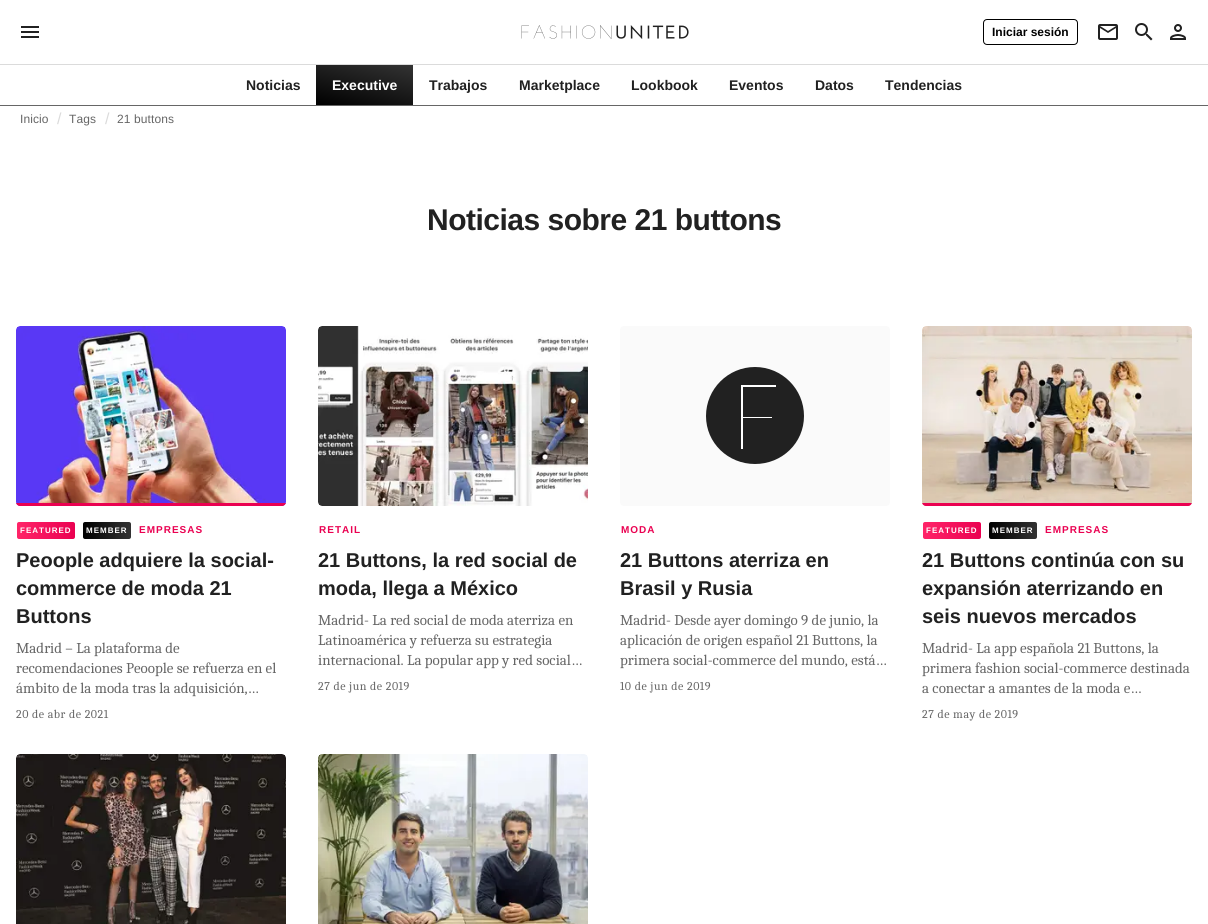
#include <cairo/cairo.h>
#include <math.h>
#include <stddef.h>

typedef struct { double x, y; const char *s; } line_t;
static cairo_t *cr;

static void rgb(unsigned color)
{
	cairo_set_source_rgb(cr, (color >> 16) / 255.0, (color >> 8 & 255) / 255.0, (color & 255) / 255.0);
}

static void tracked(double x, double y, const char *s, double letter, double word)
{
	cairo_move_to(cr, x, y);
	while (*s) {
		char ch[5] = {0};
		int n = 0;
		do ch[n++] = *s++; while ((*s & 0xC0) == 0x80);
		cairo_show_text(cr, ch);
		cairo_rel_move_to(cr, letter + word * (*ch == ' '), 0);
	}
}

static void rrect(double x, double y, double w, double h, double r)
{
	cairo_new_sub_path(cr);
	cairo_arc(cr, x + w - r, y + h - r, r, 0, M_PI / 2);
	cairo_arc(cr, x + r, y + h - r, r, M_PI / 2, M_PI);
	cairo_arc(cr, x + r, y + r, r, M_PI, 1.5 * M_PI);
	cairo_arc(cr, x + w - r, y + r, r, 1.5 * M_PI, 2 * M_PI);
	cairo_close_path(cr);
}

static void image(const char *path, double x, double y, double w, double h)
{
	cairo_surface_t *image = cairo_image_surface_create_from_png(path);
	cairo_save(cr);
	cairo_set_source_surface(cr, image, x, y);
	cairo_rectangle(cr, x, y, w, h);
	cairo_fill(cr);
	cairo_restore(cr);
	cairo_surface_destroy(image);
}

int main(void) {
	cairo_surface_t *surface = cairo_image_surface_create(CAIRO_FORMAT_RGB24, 1208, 924);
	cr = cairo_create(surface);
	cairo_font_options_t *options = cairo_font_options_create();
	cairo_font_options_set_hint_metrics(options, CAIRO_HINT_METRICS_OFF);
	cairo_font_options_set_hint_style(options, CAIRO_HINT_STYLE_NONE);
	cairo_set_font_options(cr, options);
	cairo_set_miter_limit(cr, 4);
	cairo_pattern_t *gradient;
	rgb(0xffffff);
	cairo_paint(cr);
	rgb(0xdbdbdb);
	cairo_rectangle(cr, 0, 64, 1208, 1);
	cairo_fill(cr);
	image("img/1.png", 21, 26, 18, 12);
	image("img/2.png", 521, 25, 168, 14);
	rrect(983.5, 19.5, 94, 25, 3.5);
	rgb(0x000000);
	cairo_set_line_width(cr, 1);
	cairo_stroke(cr);
	image("img/3.png", 1098, 24, 20, 16);
	image("img/4.png", 1135, 23, 18, 18);
	image("img/5.png", 1170, 24, 16, 16);
	rgb(0x666666);
	cairo_rectangle(cr, 0, 105, 1208, 1);
	cairo_fill(cr);
	gradient = cairo_pattern_create_linear(357, 115, 372, 55);
	cairo_pattern_add_color_stop_rgba(gradient, 0, 0, 0, 0, 1);
	cairo_pattern_add_color_stop_rgba(gradient, 1, 0.2, 0.2, 0.2, 1);
	cairo_set_source(cr, gradient);
	cairo_pattern_destroy(gradient);
	cairo_rectangle(cr, 316, 65, 97, 40);
	cairo_fill(cr);
	image("img/6.png", 16, 326, 270, 180);
	cairo_save(cr);
	rrect(16, 326, 270, 180, 4);
	cairo_clip(cr);
	rgb(0xea0151);
	cairo_rectangle(cr, 16, 503, 270, 3);
	cairo_fill(cr);
	cairo_restore(cr);
	gradient = cairo_pattern_create_linear(17, 531, 75, 531);
	cairo_pattern_add_color_stop_rgba(gradient, 0, 1, 0.141, 0.408, 1);
	cairo_pattern_add_color_stop_rgba(gradient, 1, 0.918, 0.004, 0.318, 1);
	cairo_set_source(cr, gradient);
	cairo_pattern_destroy(gradient);
	rrect(17, 522, 58, 17, 2);
	cairo_fill(cr);
	gradient = cairo_pattern_create_linear(83, 531, 131, 531);
	cairo_pattern_add_color_stop_rgba(gradient, 0, 0, 0, 0, 1);
	cairo_pattern_add_color_stop_rgba(gradient, 1, 0.2, 0.2, 0.2, 1);
	cairo_set_source(cr, gradient);
	cairo_pattern_destroy(gradient);
	rrect(83, 522, 48, 17, 2);
	cairo_fill(cr);
	image("img/7.png", 318, 326, 270, 180);
	rgb(0xfafafa);
	rrect(620, 326, 270, 180, 4);
	cairo_fill(cr);
	rgb(0x212121);
	cairo_new_path(cr);
	cairo_move_to(cr, 755, 464);
	cairo_curve_to(cr, 782, 464, 804, 443, 804, 416);
	cairo_curve_to(cr, 804, 389, 782, 367, 755, 367);
	cairo_curve_to(cr, 728, 367, 706, 389, 706, 416);
	cairo_curve_to(cr, 706, 443, 728, 464, 755, 464);
	cairo_close_path(cr);
	cairo_fill(cr);
	rgb(0xffffff);
	cairo_new_path(cr);
	cairo_move_to(cr, 776, 385);
	cairo_line_to(cr, 776, 387);
	cairo_line_to(cr, 743, 387);
	cairo_line_to(cr, 743, 417);
	cairo_line_to(cr, 772, 417);
	cairo_line_to(cr, 772, 418);
	cairo_line_to(cr, 743, 418);
	cairo_line_to(cr, 743, 449);
	cairo_line_to(cr, 741, 449);
	cairo_line_to(cr, 741, 385);
	cairo_close_path(cr);
	cairo_fill(cr);
	image("img/8.png", 922, 326, 270, 180);
	cairo_save(cr);
	rrect(922, 326, 270, 180, 4);
	cairo_clip(cr);
	rgb(0xea0151);
	cairo_rectangle(cr, 922, 503, 270, 3);
	cairo_fill(cr);
	cairo_restore(cr);
	gradient = cairo_pattern_create_linear(923, 531, 981, 531);
	cairo_pattern_add_color_stop_rgba(gradient, 0, 1, 0.141, 0.408, 1);
	cairo_pattern_add_color_stop_rgba(gradient, 1, 0.918, 0.004, 0.318, 1);
	cairo_set_source(cr, gradient);
	cairo_pattern_destroy(gradient);
	rrect(923, 522, 58, 17, 2);
	cairo_fill(cr);
	gradient = cairo_pattern_create_linear(989, 531, 1037, 531);
	cairo_pattern_add_color_stop_rgba(gradient, 0, 0, 0, 0, 1);
	cairo_pattern_add_color_stop_rgba(gradient, 1, 0.2, 0.2, 0.2, 1);
	cairo_set_source(cr, gradient);
	cairo_pattern_destroy(gradient);
	rrect(989, 522, 48, 17, 2);
	cairo_fill(cr);
	image("img/9.png", 16, 754, 270, 170);
	image("img/10.png", 318, 754, 270, 170);
	cairo_select_font_face(cr, "Liberation Sans", CAIRO_FONT_SLANT_NORMAL, CAIRO_FONT_WEIGHT_BOLD);
	cairo_set_font_size(cr, 12);
	rgb(0x000000);
	cairo_move_to(cr, 992, 36);
	cairo_show_text(cr, "Iniciar sesión");
	cairo_set_font_size(cr, 14);
	rgb(0x212121);
	cairo_move_to(cr, 246, 90);
	cairo_show_text(cr, "Noticias");
	rgb(0xffffff);
	cairo_move_to(cr, 332, 90);
	cairo_show_text(cr, "Executive");
	rgb(0x212121);
	{
		static const line_t items[] = {
			{429, 90, "Trabajos"},
			{519, 90, "Marketplace"},
			{631, 90, "Lookbook"},
			{729, 90, "Eventos"},
			{815, 90, "Datos"},
			{885, 90, "Tendencias"},
		};
		for (size_t i = 0; i < sizeof items / sizeof *items; i++) {
			cairo_move_to(cr, items[i].x, items[i].y);
			cairo_show_text(cr, items[i].s);
		}
	}
	cairo_select_font_face(cr, "Liberation Sans", CAIRO_FONT_SLANT_NORMAL, CAIRO_FONT_WEIGHT_NORMAL);
	cairo_set_font_size(cr, 12);
	rgb(0x666666);
	tracked(20, 123, "Inicio", 0.1, 0);
	cairo_set_font_size(cr, 16);
	rgb(0xdbdbdb);
	cairo_move_to(cr, 57, 124);
	cairo_show_text(cr, "/");
	cairo_set_font_size(cr, 12);
	rgb(0x666666);
	tracked(69, 123, "Tags", 0.1, 0);
	cairo_set_font_size(cr, 16);
	rgb(0xdbdbdb);
	cairo_move_to(cr, 105, 124);
	cairo_show_text(cr, "/");
	cairo_set_font_size(cr, 12);
	rgb(0x666666);
	tracked(117, 123, "21 buttons", 0.1, 0);
	cairo_select_font_face(cr, "Liberation Sans", CAIRO_FONT_SLANT_NORMAL, CAIRO_FONT_WEIGHT_BOLD);
	cairo_set_font_size(cr, 30);
	rgb(0x212121);
	tracked(427, 230, "Noticias sobre 21 buttons", -0.5, 0);
	cairo_set_font_size(cr, 8);
	rgb(0xffffff);
	tracked(20, 533, "FEATURED", 1, 0);
	tracked(86, 533, "MEMBER", 1, 0);
	cairo_set_font_size(cr, 10);
	rgb(0xea0151);
	tracked(139, 533, "EMPRESAS", 1, 0);
	cairo_set_font_size(cr, 20);
	rgb(0x212121);
	{
		static const line_t items[] = {
			{16, 567, "Peoople adquiere la social-"},
			{16, 595, "commerce de moda 21"},
			{16, 623, "Buttons"},
		};
		for (size_t i = 0; i < sizeof items / sizeof *items; i++) {
			cairo_move_to(cr, items[i].x, items[i].y);
			cairo_show_text(cr, items[i].s);
		}
	}
	cairo_select_font_face(cr, "Caladea", CAIRO_FONT_SLANT_NORMAL, CAIRO_FONT_WEIGHT_NORMAL);
	cairo_set_font_size(cr, 15);
	rgb(0x666666);
	{
		static const line_t items[] = {
			{16, 653, "Madrid – La plataforma de"},
			{16, 673, "recomendaciones Peoople se refuerza en el"},
			{16, 693, "ámbito de la moda tras la adquisición,…"},
		};
		for (size_t i = 0; i < sizeof items / sizeof *items; i++) {
			cairo_move_to(cr, items[i].x, items[i].y);
			cairo_show_text(cr, items[i].s);
		}
	}
	cairo_set_font_size(cr, 12);
	tracked(16, 718, "20 de abr de 2021", 0.5, 0);
	cairo_select_font_face(cr, "Liberation Sans", CAIRO_FONT_SLANT_NORMAL, CAIRO_FONT_WEIGHT_BOLD);
	cairo_set_font_size(cr, 10);
	rgb(0xea0151);
	tracked(319, 533, "RETAIL", 1, 0);
	cairo_set_font_size(cr, 20);
	rgb(0x212121);
	cairo_move_to(cr, 318, 567);
	cairo_show_text(cr, "21 Buttons, la red social de");
	cairo_move_to(cr, 318, 595);
	cairo_show_text(cr, "moda, llega a México");
	cairo_select_font_face(cr, "Caladea", CAIRO_FONT_SLANT_NORMAL, CAIRO_FONT_WEIGHT_NORMAL);
	cairo_set_font_size(cr, 15);
	rgb(0x666666);
	{
		static const line_t items[] = {
			{318, 625, "Madrid- La red social de moda aterriza en"},
			{318, 645, "Latinoamérica y refuerza su estrategia"},
			{318, 665, "internacional. La popular app y red social…"},
		};
		for (size_t i = 0; i < sizeof items / sizeof *items; i++) {
			cairo_move_to(cr, items[i].x, items[i].y);
			cairo_show_text(cr, items[i].s);
		}
	}
	cairo_set_font_size(cr, 12);
	tracked(318, 690, "27 de jun de 2019", 0.5, 0);
	cairo_select_font_face(cr, "Liberation Sans", CAIRO_FONT_SLANT_NORMAL, CAIRO_FONT_WEIGHT_BOLD);
	cairo_set_font_size(cr, 10);
	rgb(0xea0151);
	tracked(621, 533, "MODA", 1, 0);
	cairo_set_font_size(cr, 20);
	rgb(0x212121);
	cairo_move_to(cr, 620, 567);
	cairo_show_text(cr, "21 Buttons aterriza en");
	cairo_move_to(cr, 620, 595);
	cairo_show_text(cr, "Brasil y Rusia");
	cairo_select_font_face(cr, "Caladea", CAIRO_FONT_SLANT_NORMAL, CAIRO_FONT_WEIGHT_NORMAL);
	cairo_set_font_size(cr, 15);
	rgb(0x666666);
	{
		static const line_t items[] = {
			{620, 625, "Madrid- Desde ayer domingo 9 de junio, la"},
			{620, 645, "aplicación de origen español 21 Buttons, la"},
			{620, 665, "primera social-commerce del mundo, está…"},
		};
		for (size_t i = 0; i < sizeof items / sizeof *items; i++) {
			cairo_move_to(cr, items[i].x, items[i].y);
			cairo_show_text(cr, items[i].s);
		}
	}
	cairo_set_font_size(cr, 12);
	tracked(620, 690, "10 de jun de 2019", 0.5, 0);
	cairo_select_font_face(cr, "Liberation Sans", CAIRO_FONT_SLANT_NORMAL, CAIRO_FONT_WEIGHT_BOLD);
	cairo_set_font_size(cr, 8);
	rgb(0xffffff);
	tracked(926, 533, "FEATURED", 1, 0);
	tracked(992, 533, "MEMBER", 1, 0);
	cairo_set_font_size(cr, 10);
	rgb(0xea0151);
	tracked(1045, 533, "EMPRESAS", 1, 0);
	cairo_set_font_size(cr, 20);
	rgb(0x212121);
	{
		static const line_t items[] = {
			{922, 567, "21 Buttons continúa con su"},
			{922, 595, "expansión aterrizando en"},
			{922, 623, "seis nuevos mercados"},
		};
		for (size_t i = 0; i < sizeof items / sizeof *items; i++) {
			cairo_move_to(cr, items[i].x, items[i].y);
			cairo_show_text(cr, items[i].s);
		}
	}
	cairo_select_font_face(cr, "Caladea", CAIRO_FONT_SLANT_NORMAL, CAIRO_FONT_WEIGHT_NORMAL);
	cairo_set_font_size(cr, 15);
	rgb(0x666666);
	{
		static const line_t items[] = {
			{922, 653, "Madrid- La app española 21 Buttons, la"},
			{922, 673, "primera fashion social-commerce destinada"},
			{922, 693, "a conectar a amantes de la moda e…"},
		};
		for (size_t i = 0; i < sizeof items / sizeof *items; i++) {
			cairo_move_to(cr, items[i].x, items[i].y);
			cairo_show_text(cr, items[i].s);
		}
	}
	cairo_set_font_size(cr, 12);
	tracked(922, 718, "27 de may de 2019", 0.5, 0);
	cairo_surface_write_to_png(surface, "page.png");
	cairo_font_options_destroy(options);
	cairo_destroy(cr);
	cairo_surface_destroy(surface);
	return 0;
}
